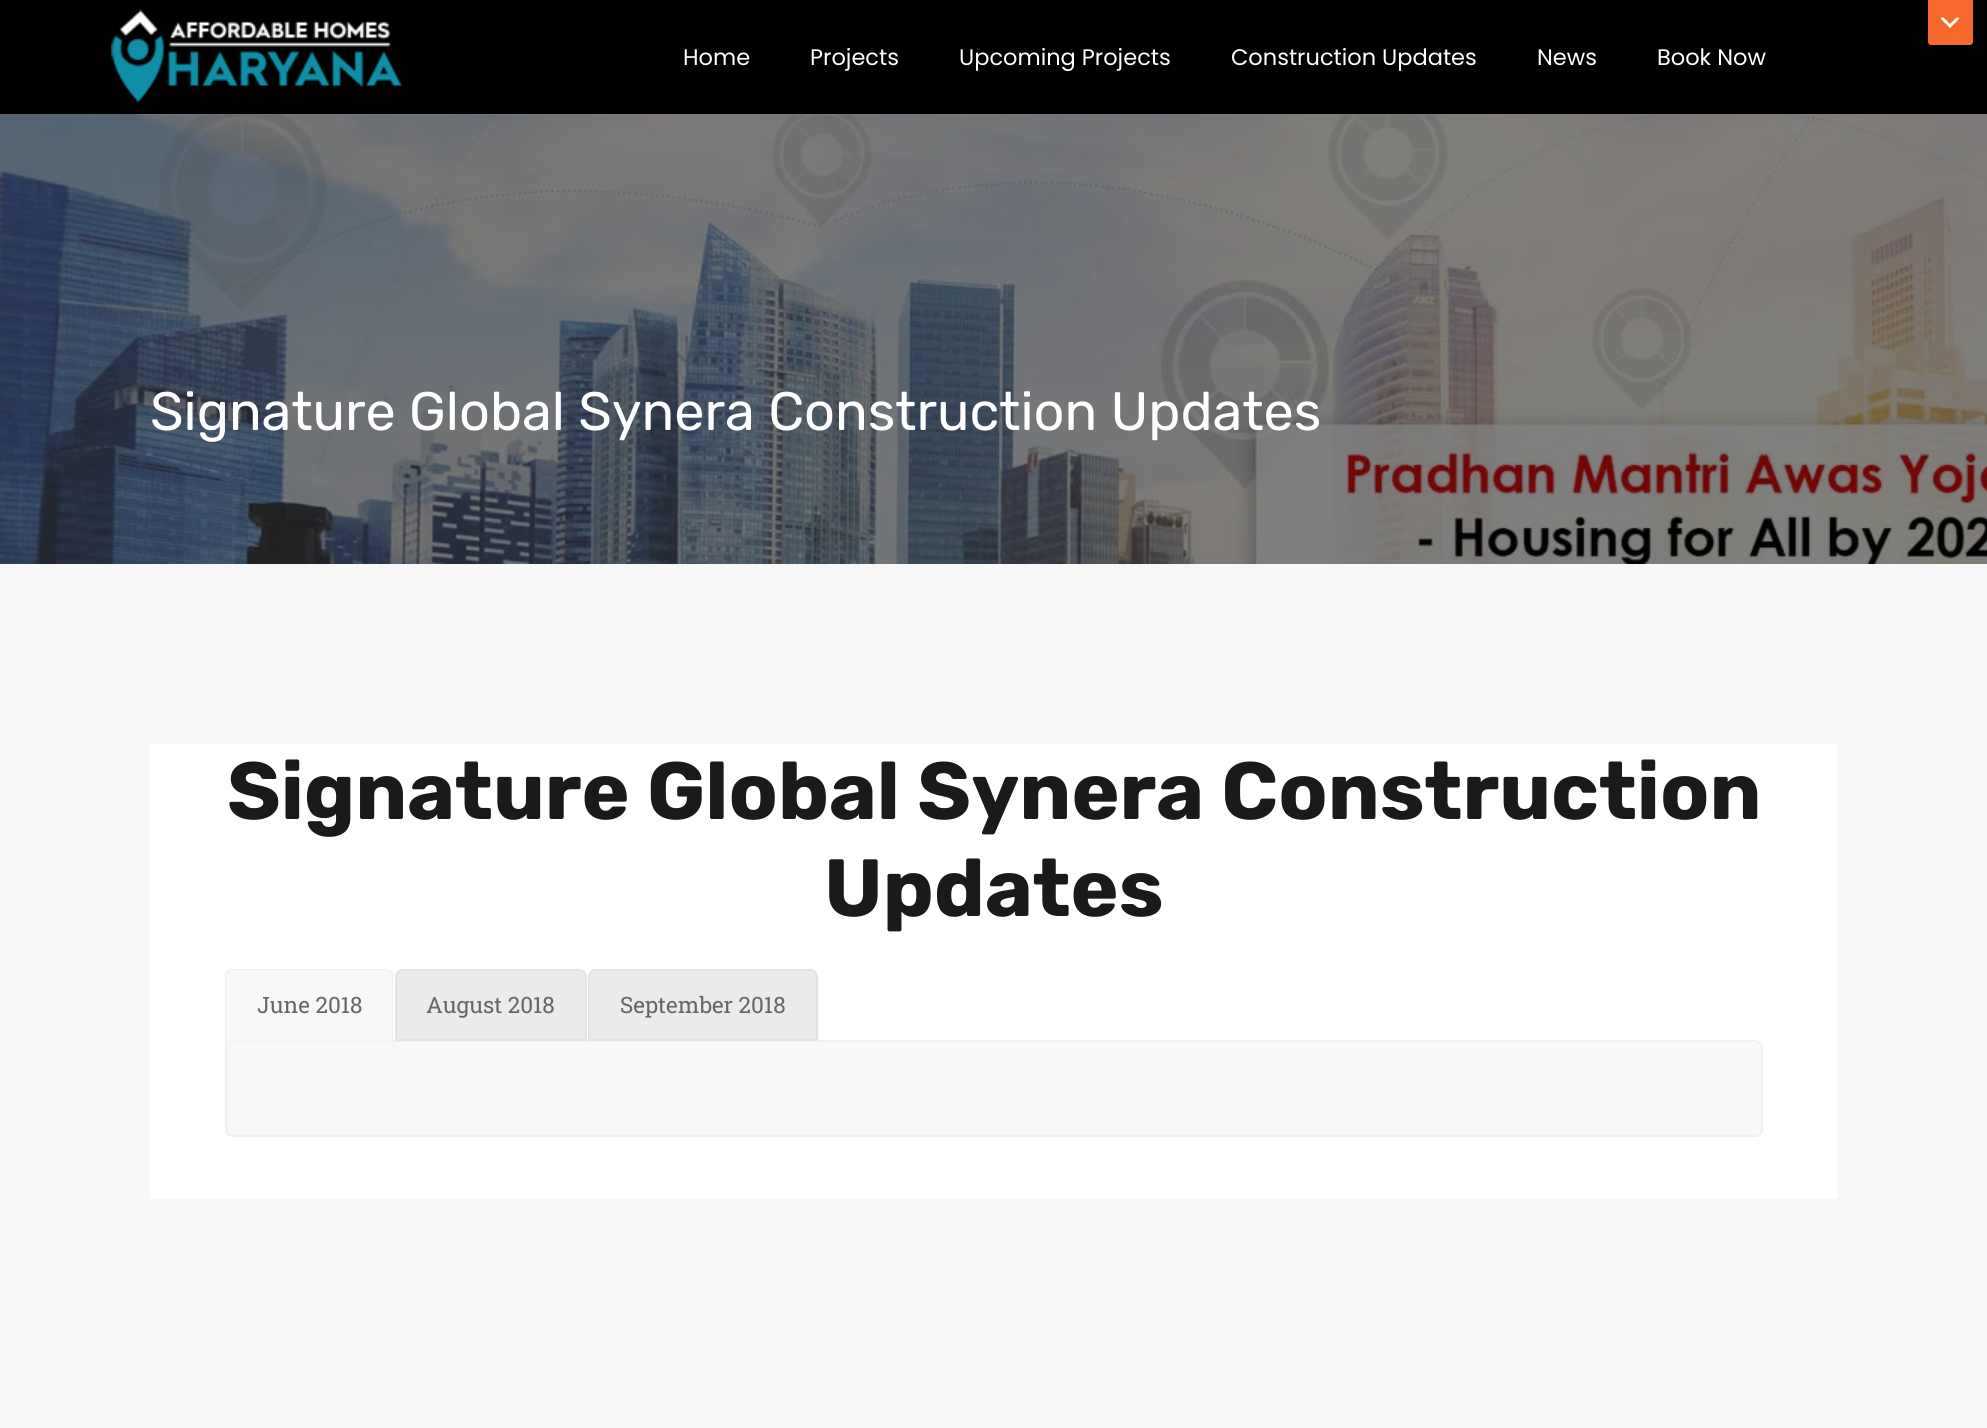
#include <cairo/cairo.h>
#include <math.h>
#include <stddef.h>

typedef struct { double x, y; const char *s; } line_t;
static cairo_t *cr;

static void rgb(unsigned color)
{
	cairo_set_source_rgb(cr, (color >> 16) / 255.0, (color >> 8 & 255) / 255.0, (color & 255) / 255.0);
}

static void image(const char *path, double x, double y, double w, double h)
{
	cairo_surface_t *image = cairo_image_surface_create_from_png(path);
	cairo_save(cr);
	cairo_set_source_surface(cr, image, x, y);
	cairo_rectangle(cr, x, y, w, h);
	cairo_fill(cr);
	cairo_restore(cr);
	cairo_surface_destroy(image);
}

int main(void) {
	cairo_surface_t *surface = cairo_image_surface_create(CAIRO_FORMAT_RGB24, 1987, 1428);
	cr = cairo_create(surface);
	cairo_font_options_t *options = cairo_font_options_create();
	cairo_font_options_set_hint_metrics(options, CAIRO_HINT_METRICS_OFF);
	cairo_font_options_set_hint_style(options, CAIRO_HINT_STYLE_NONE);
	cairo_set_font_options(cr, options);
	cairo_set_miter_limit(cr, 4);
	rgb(0xf7f7f7);
	cairo_paint(cr);
	rgb(0x000000);
	cairo_rectangle(cr, 0, 0, 1987, 114);
	cairo_fill(cr);
	rgb(0xf7682c);
	cairo_new_path(cr);
	cairo_move_to(cr, 1928, 0);
	cairo_line_to(cr, 1973, 0);
	cairo_line_to(cr, 1973, 42);
	cairo_curve_to(cr, 1973, 43.5, 1971.5, 45, 1970, 45);
	cairo_line_to(cr, 1931, 45);
	cairo_curve_to(cr, 1929.5, 45, 1928, 43.5, 1928, 42);
	cairo_close_path(cr);
	cairo_fill(cr);
	rgb(0xffffff);
	cairo_new_path(cr);
	cairo_move_to(cr, 1943, 17);
	cairo_line_to(cr, 1950, 24);
	cairo_line_to(cr, 1957, 17);
	cairo_line_to(cr, 1959.5, 18.5);
	cairo_line_to(cr, 1950, 28);
	cairo_line_to(cr, 1940.5, 18.5);
	cairo_close_path(cr);
	cairo_fill(cr);
	image("img/1.png", 110, 9, 293, 94);
	image("img/2.png", 0, 114, 1987, 450);
	cairo_rectangle(cr, 150, 744, 1688, 455);
	cairo_fill(cr);
	rgb(0xf8f8f8);
	cairo_new_path(cr);
	cairo_move_to(cr, 226, 1041);
	cairo_line_to(cr, 1755, 1041);
	cairo_curve_to(cr, 1759, 1041, 1762, 1044, 1762, 1048);
	cairo_line_to(cr, 1762, 1129);
	cairo_curve_to(cr, 1762, 1133, 1759, 1136, 1755, 1136);
	cairo_line_to(cr, 233, 1136);
	cairo_curve_to(cr, 229, 1136, 226, 1133, 226, 1129);
	cairo_close_path(cr);
	cairo_fill_preserve(cr);
	rgb(0xf0f0f0);
	cairo_stroke(cr);
	rgb(0xf8f8f8);
	cairo_new_path(cr);
	cairo_move_to(cr, 233, 969);
	cairo_line_to(cr, 385, 969);
	cairo_curve_to(cr, 389.5, 969, 393, 972.5, 393, 977);
	cairo_line_to(cr, 393, 1041);
	cairo_line_to(cr, 225, 1041);
	cairo_line_to(cr, 225, 977);
	cairo_curve_to(cr, 225, 972.5, 228.5, 969, 233, 969);
	cairo_close_path(cr);
	cairo_fill(cr);
	rgb(0xf0f0f0);
	cairo_new_path(cr);
	cairo_move_to(cr, 232, 969);
	cairo_curve_to(cr, 230, 969, 228, 970, 227, 971);
	cairo_line_to(cr, 228, 972);
	cairo_line_to(cr, 231, 970);
	cairo_line_to(cr, 387, 970);
	cairo_line_to(cr, 390, 972);
	cairo_line_to(cr, 391, 971);
	cairo_curve_to(cr, 390, 970, 388, 969, 386, 969);
	cairo_close_path(cr);
	cairo_fill(cr);
	cairo_new_path(cr);
	cairo_move_to(cr, 393, 1041);
	cairo_line_to(cr, 393, 976);
	cairo_curve_to(cr, 393, 974, 392, 972, 391, 971);
	cairo_line_to(cr, 390, 972);
	cairo_curve_to(cr, 391, 973, 392, 974, 392, 976);
	cairo_line_to(cr, 392, 1040);
	cairo_close_path(cr);
	cairo_fill(cr);
	cairo_new_path(cr);
	cairo_move_to(cr, 225, 1041);
	cairo_line_to(cr, 226, 1040);
	cairo_line_to(cr, 226, 976);
	cairo_curve_to(cr, 226, 974, 227, 973, 228, 972);
	cairo_line_to(cr, 227, 971);
	cairo_curve_to(cr, 226, 972, 225, 974, 225, 976);
	cairo_close_path(cr);
	cairo_fill(cr);
	cairo_rectangle(cr, 225, 1040, 2, 1);
	cairo_fill(cr);
	cairo_rectangle(cr, 392, 1040, 1, 1);
	cairo_fill(cr);
	rgb(0xebebeb);
	cairo_new_path(cr);
	cairo_move_to(cr, 403, 970);
	cairo_line_to(cr, 579, 970);
	cairo_curve_to(cr, 583, 970, 586, 973, 586, 977);
	cairo_line_to(cr, 586, 1040);
	cairo_line_to(cr, 396, 1040);
	cairo_line_to(cr, 396, 977);
	cairo_curve_to(cr, 396, 973, 399, 970, 403, 970);
	cairo_close_path(cr);
	cairo_fill_preserve(cr);
	rgb(0xe3e3e3);
	cairo_stroke(cr);
	rgb(0xebebeb);
	cairo_new_path(cr);
	cairo_move_to(cr, 596, 970);
	cairo_line_to(cr, 810, 970);
	cairo_curve_to(cr, 814, 970, 817, 973, 817, 977);
	cairo_line_to(cr, 817, 1040);
	cairo_line_to(cr, 589, 1040);
	cairo_line_to(cr, 589, 977);
	cairo_curve_to(cr, 589, 973, 592, 970, 596, 970);
	cairo_close_path(cr);
	cairo_fill_preserve(cr);
	rgb(0xe3e3e3);
	cairo_stroke(cr);
	cairo_select_font_face(cr, "Poppins", CAIRO_FONT_SLANT_NORMAL, CAIRO_FONT_WEIGHT_NORMAL);
	cairo_set_font_size(cr, 22.5);
	rgb(0xffffff);
	{
		static const line_t items[] = {
			{683, 65, "Home"},
			{810, 65, "Projects"},
			{959, 65, "Upcoming Projects"},
			{1231, 65, "Construction Updates"},
			{1537, 65, "News"},
			{1657, 65, "Book Now"},
		};
		for (size_t i = 0; i < sizeof items / sizeof *items; i++) {
			cairo_move_to(cr, items[i].x, items[i].y);
			cairo_show_text(cr, items[i].s);
		}
	}
	cairo_select_font_face(cr, "Rubik", CAIRO_FONT_SLANT_NORMAL, CAIRO_FONT_WEIGHT_NORMAL);
	cairo_set_font_size(cr, 54);
	cairo_move_to(cr, 150, 430);
	cairo_show_text(cr, "Signature Global Synera Construction Updates");
	cairo_select_font_face(cr, "Rubik", CAIRO_FONT_SLANT_NORMAL, CAIRO_FONT_WEIGHT_BOLD);
	cairo_set_font_size(cr, 81);
	rgb(0x1a1a1a);
	cairo_move_to(cr, 227, 819);
	cairo_show_text(cr, "Signature Global Synera Construction");
	cairo_move_to(cr, 824, 916);
	cairo_show_text(cr, "Updates");
	cairo_select_font_face(cr, "Roboto Slab", CAIRO_FONT_SLANT_NORMAL, CAIRO_FONT_WEIGHT_NORMAL);
	cairo_set_font_size(cr, 22.5);
	rgb(0x666666);
	{
		static const line_t items[] = {
			{257, 1013, "June 2018"},
			{426, 1013, "August 2018"},
			{620, 1013, "September 2018"},
		};
		for (size_t i = 0; i < sizeof items / sizeof *items; i++) {
			cairo_move_to(cr, items[i].x, items[i].y);
			cairo_show_text(cr, items[i].s);
		}
	}
	cairo_surface_write_to_png(surface, "page.png");
	cairo_font_options_destroy(options);
	cairo_destroy(cr);
	cairo_surface_destroy(surface);
	return 0;
}
